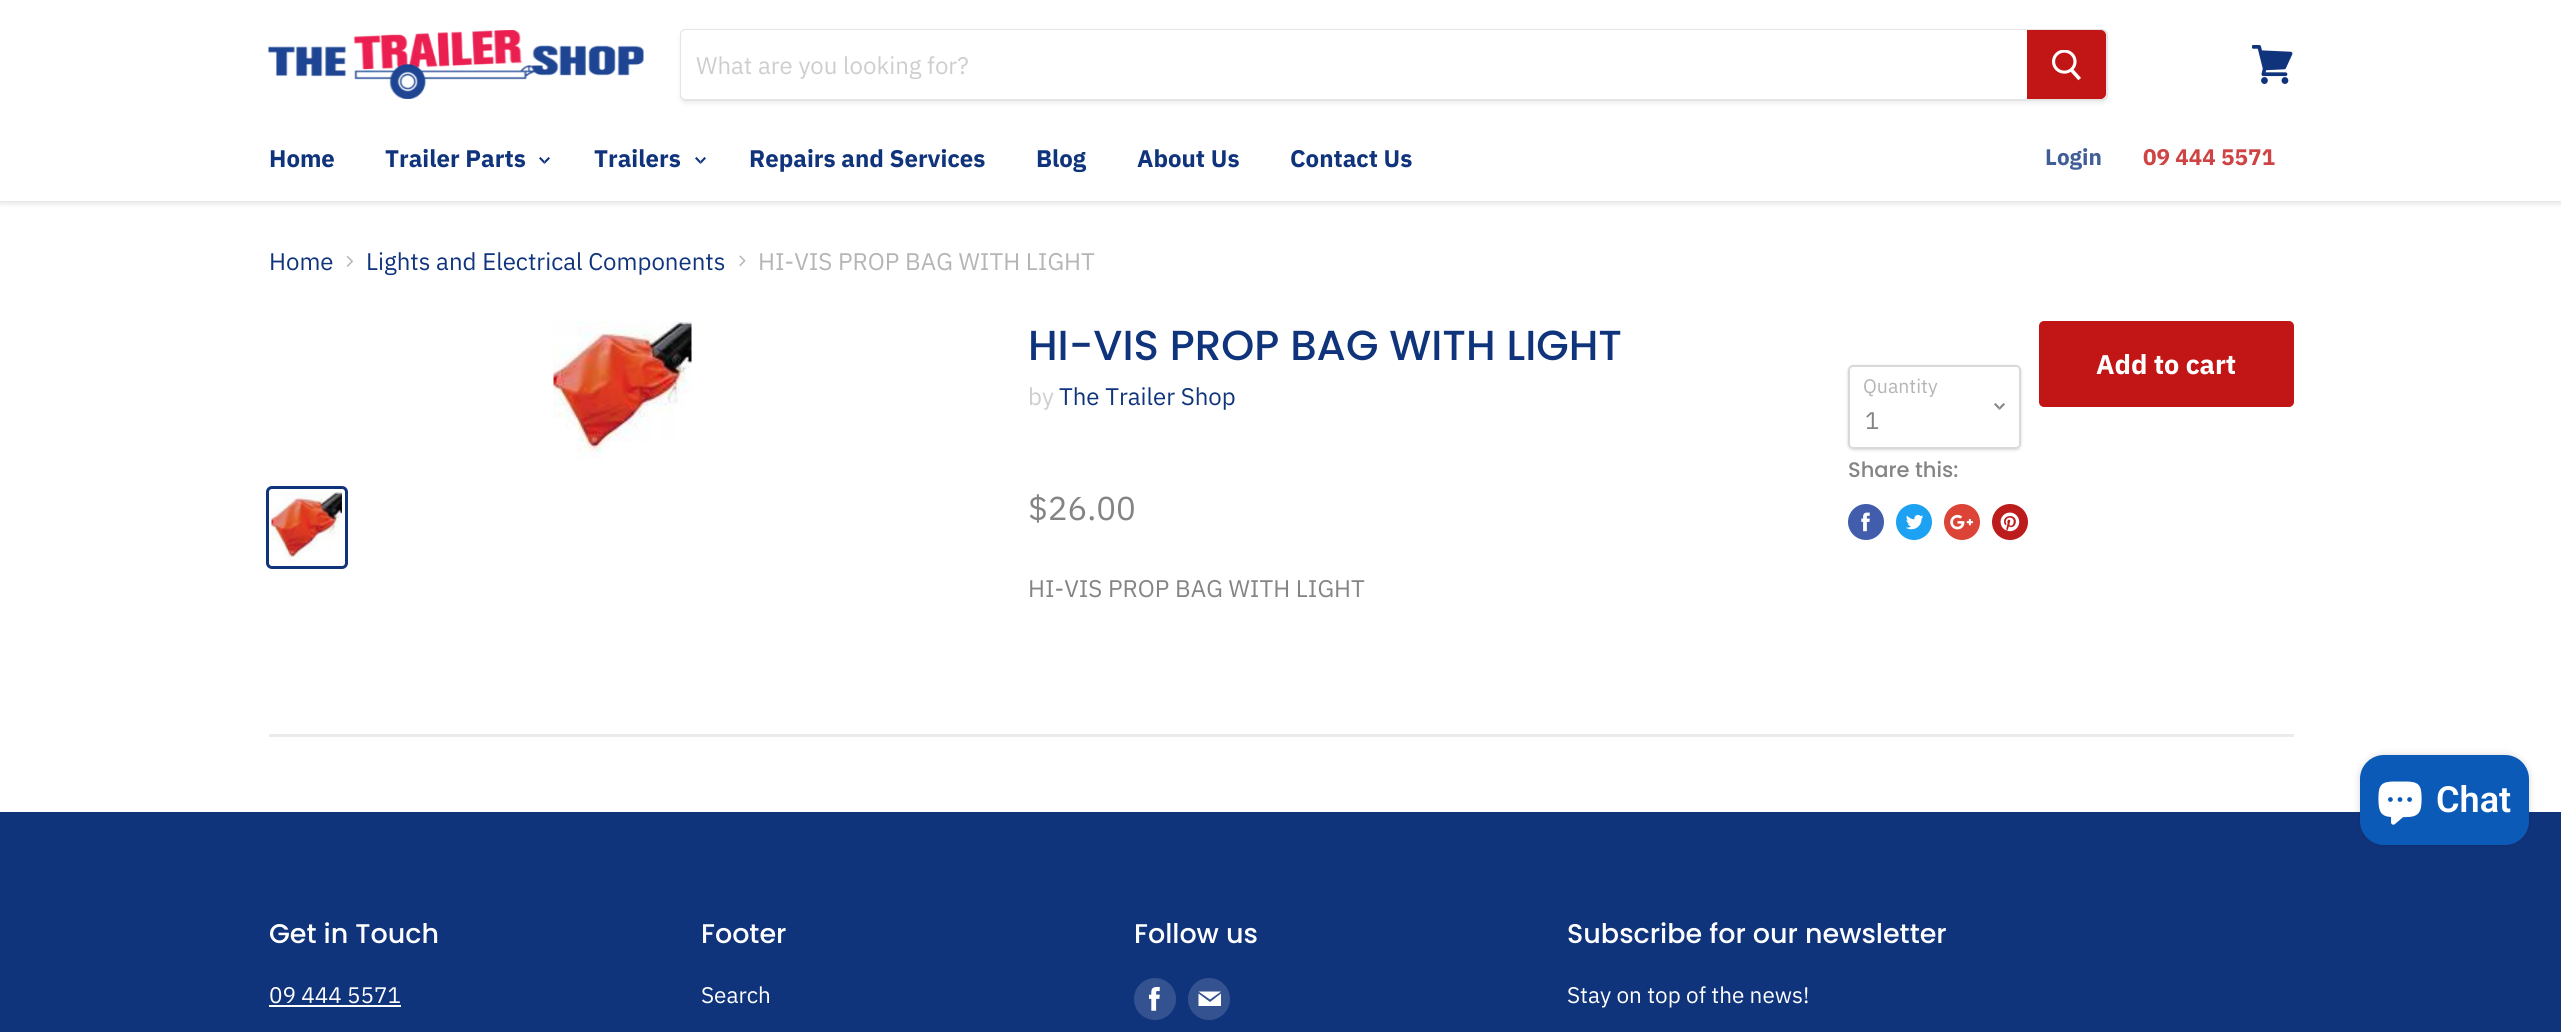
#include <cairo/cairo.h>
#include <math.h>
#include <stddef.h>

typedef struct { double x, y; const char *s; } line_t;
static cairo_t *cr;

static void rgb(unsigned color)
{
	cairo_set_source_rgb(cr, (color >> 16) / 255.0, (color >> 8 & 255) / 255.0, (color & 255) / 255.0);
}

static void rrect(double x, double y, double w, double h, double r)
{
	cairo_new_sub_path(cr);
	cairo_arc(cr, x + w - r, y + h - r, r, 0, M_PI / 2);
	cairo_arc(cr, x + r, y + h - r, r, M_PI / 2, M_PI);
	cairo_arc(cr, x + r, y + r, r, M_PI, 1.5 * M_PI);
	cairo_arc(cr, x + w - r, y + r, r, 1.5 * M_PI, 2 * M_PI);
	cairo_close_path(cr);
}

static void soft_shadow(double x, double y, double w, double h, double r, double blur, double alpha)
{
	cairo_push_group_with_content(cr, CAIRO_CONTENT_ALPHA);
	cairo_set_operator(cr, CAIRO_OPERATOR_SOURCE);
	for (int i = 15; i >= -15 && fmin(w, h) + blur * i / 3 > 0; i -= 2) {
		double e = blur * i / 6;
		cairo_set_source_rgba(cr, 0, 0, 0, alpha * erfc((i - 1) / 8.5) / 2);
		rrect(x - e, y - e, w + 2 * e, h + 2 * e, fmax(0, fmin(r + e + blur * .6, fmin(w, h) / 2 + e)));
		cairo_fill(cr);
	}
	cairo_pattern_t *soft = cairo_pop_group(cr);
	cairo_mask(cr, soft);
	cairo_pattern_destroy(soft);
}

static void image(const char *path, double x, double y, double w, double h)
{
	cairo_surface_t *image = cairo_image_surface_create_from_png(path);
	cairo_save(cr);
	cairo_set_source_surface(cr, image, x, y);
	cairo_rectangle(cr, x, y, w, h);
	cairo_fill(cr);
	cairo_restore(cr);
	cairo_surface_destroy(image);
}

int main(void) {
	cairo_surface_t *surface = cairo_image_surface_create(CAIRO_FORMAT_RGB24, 2561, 1032);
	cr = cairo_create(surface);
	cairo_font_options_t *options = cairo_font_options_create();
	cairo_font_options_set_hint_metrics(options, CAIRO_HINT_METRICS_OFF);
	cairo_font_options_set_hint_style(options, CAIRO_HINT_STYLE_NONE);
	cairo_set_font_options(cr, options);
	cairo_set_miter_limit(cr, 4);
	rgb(0xffffff);
	cairo_paint(cr);
	cairo_save(cr);
	cairo_rectangle(cr, 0, 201, 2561, 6);
	cairo_clip(cr);
	rgb(0x7f7f7f);
	soft_shadow(0, 2, 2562, 201, 0, 3, 0.25);
	cairo_restore(cr);
	image("img/1.png", 268, 30, 376, 69);
	cairo_save(cr);
	cairo_set_fill_rule(cr, CAIRO_FILL_RULE_EVEN_ODD);
	cairo_new_path(cr);
	cairo_move_to(cr, 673, 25);
	cairo_line_to(cr, 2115, 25);
	cairo_line_to(cr, 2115, 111);
	cairo_line_to(cr, 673, 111);
	cairo_close_path(cr);
	cairo_move_to(cr, 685, 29);
	cairo_line_to(cr, 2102, 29);
	cairo_curve_to(cr, 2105.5, 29, 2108, 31.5, 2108, 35);
	cairo_line_to(cr, 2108, 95);
	cairo_curve_to(cr, 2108, 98.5, 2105.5, 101, 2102, 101);
	cairo_line_to(cr, 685, 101);
	cairo_curve_to(cr, 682, 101, 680, 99, 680, 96);
	cairo_line_to(cr, 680, 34);
	cairo_curve_to(cr, 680, 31, 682, 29, 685, 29);
	cairo_close_path(cr);
	cairo_clip(cr);
	rgb(0x7f7f7f);
	soft_shadow(680, 32, 1428, 72, 6, 2, 0.11);
	cairo_restore(cr);
	cairo_new_path(cr);
	cairo_move_to(cr, 685, 30);
	cairo_line_to(cr, 2102, 30);
	cairo_curve_to(cr, 2105, 30, 2107, 32, 2107, 35);
	cairo_line_to(cr, 2107, 95);
	cairo_curve_to(cr, 2107, 98, 2105, 100, 2102, 100);
	cairo_line_to(cr, 685, 100);
	cairo_curve_to(cr, 683, 100, 681, 98, 681, 96);
	cairo_line_to(cr, 681, 34);
	cairo_curve_to(cr, 681, 32, 683, 30, 685, 30);
	cairo_close_path(cr);
	cairo_set_source_rgba(cr, 0.498, 0.498, 0.498, 0.2);
	cairo_stroke(cr);
	rgb(0xffffff);
	cairo_new_path(cr);
	cairo_move_to(cr, 686, 30);
	cairo_line_to(cr, 2027, 30);
	cairo_line_to(cr, 2027, 99);
	cairo_line_to(cr, 686, 99);
	cairo_curve_to(cr, 683, 99, 681, 97, 681, 94);
	cairo_line_to(cr, 681, 35);
	cairo_curve_to(cr, 681, 32, 683, 30, 686, 30);
	cairo_close_path(cr);
	cairo_fill(cr);
	rgb(0xc21515);
	cairo_new_path(cr);
	cairo_move_to(cr, 2028, 31);
	cairo_line_to(cr, 2101, 31);
	cairo_curve_to(cr, 2103, 31, 2105, 33, 2105, 35);
	cairo_line_to(cr, 2105, 94);
	cairo_curve_to(cr, 2105, 96, 2103, 98, 2101, 98);
	cairo_line_to(cr, 2028, 98);
	cairo_close_path(cr);
	cairo_fill_preserve(cr);
	cairo_stroke(cr);
	image("img/2.png", 2052, 50, 29, 31);
	image("img/3.png", 2252, 45, 41, 39);
	image("img/4.png", 539, 157, 11, 7);
	image("img/4.png", 695, 157, 11, 7);
	image("img/5.png", 346, 256, 7, 11);
	image("img/6.png", 739, 255, 7, 12);
	image("img/7.png", 553, 321, 139, 138);
	rrect(267.5, 487.5, 79, 80, 4.5);
	rgb(0x10347c);
	cairo_set_line_width(cr, 3);
	cairo_stroke(cr);
	image("img/8.png", 271, 492, 71, 70);
	rgb(0xc21515);
	rrect(2040, 322, 253, 84, 4);
	cairo_fill_preserve(cr);
	cairo_set_line_width(cr, 2);
	cairo_stroke(cr);
	cairo_save(cr);
	cairo_set_fill_rule(cr, CAIRO_FILL_RULE_EVEN_ODD);
	cairo_new_path(cr);
	cairo_move_to(cr, 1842, 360);
	cairo_line_to(cr, 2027, 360);
	cairo_line_to(cr, 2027, 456);
	cairo_line_to(cr, 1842, 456);
	cairo_close_path(cr);
	cairo_move_to(cr, 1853, 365);
	cairo_line_to(cr, 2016, 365);
	cairo_curve_to(cr, 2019, 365, 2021, 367, 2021, 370);
	cairo_line_to(cr, 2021, 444);
	cairo_curve_to(cr, 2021, 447, 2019, 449, 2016, 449);
	cairo_line_to(cr, 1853, 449);
	cairo_curve_to(cr, 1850, 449, 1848, 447, 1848, 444);
	cairo_line_to(cr, 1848, 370);
	cairo_curve_to(cr, 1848, 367, 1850, 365, 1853, 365);
	cairo_close_path(cr);
	cairo_clip(cr);
	rgb(0x000000);
	soft_shadow(1848, 366, 173, 84, 5, 1.5, 0.15);
	cairo_restore(cr);
	rrect(1849, 366, 171, 82, 4);
	cairo_set_source_rgba(cr, 0.498, 0.498, 0.498, 0.3);
	cairo_stroke(cr);
	image("img/9.png", 1994, 403, 11, 7);
	rgb(0x425dab);
	cairo_arc(cr, 1866, 522, 18, 0, 2 * M_PI);
	cairo_fill(cr);
	image("img/10.png", 1861, 512, 9, 20);
	rgb(0x1da1f2);
	cairo_arc(cr, 1914, 522, 18, 0, 2 * M_PI);
	cairo_fill(cr);
	image("img/11.png", 1906, 514, 18, 16);
	rgb(0xdb4437);
	cairo_arc(cr, 1962, 522, 18, 0, 2 * M_PI);
	cairo_fill(cr);
	image("img/12.png", 1950, 514, 23, 16);
	rgb(0xbd1c1c);
	cairo_arc(cr, 2010, 522, 18, 0, 2 * M_PI);
	cairo_fill(cr);
	image("img/13.png", 2000, 512, 20, 20);
	cairo_set_source_rgba(cr, 0.498, 0.498, 0.498, 0.16);
	cairo_rectangle(cr, 269, 734, 2025, 3);
	cairo_fill(cr);
	rgb(0x10347c);
	cairo_rectangle(cr, 0, 812, 2561, 220);
	cairo_fill(cr);
	rgb(0x000000);
	soft_shadow(2360, 755, 169, 90, 24, 4, 0.15);
	rgb(0x0c5ab7);
	rrect(2360, 755, 169, 90, 24);
	cairo_fill(cr);
	image("img/14.png", 2378, 781, 44, 44);
	rgb(0xffffff);
	cairo_rectangle(cr, 269, 1005, 132, 2);
	cairo_fill(cr);
	rgb(0x345290);
	cairo_arc(cr, 1155, 999, 21, 0, 2 * M_PI);
	cairo_fill(cr);
	image("img/15.png", 1149, 987, 11, 24);
	cairo_arc(cr, 1209, 999, 21, 0, 2 * M_PI);
	cairo_fill(cr);
	rgb(0xffffff);
	cairo_set_fill_rule(cr, CAIRO_FILL_RULE_EVEN_ODD);
	cairo_new_path(cr);
	cairo_move_to(cr, 1221, 991.5);
	cairo_line_to(cr, 1198.5, 991.5);
	cairo_line_to(cr, 1210, 999.5);
	cairo_close_path(cr);
	cairo_move_to(cr, 1210, 1002);
	cairo_line_to(cr, 1198.5, 993.5);
	cairo_line_to(cr, 1198.5, 1006);
	cairo_line_to(cr, 1221, 1006);
	cairo_line_to(cr, 1221, 993.5);
	cairo_close_path(cr);
	cairo_fill(cr);
	cairo_select_font_face(cr, "IBM Plex Sans", CAIRO_FONT_SLANT_NORMAL, CAIRO_FONT_WEIGHT_NORMAL);
	cairo_set_font_size(cr, 24);
	rgb(0xcecece);
	cairo_move_to(cr, 696, 74);
	cairo_show_text(cr, "What are you looking for?");
	cairo_select_font_face(cr, "IBM Plex Sans", CAIRO_FONT_SLANT_NORMAL, CAIRO_FONT_WEIGHT_BOLD);
	rgb(0x10347c);
	{
		static const line_t items[] = {
			{269, 167, "Home"},
			{385, 167, "Trailer Parts"},
			{594, 167, "Trailers"},
			{749, 167, "Repairs and Services"},
			{1036, 167, "Blog"},
			{1137, 167, "About Us"},
			{1290, 167, "Contact Us"},
		};
		for (size_t i = 0; i < sizeof items / sizeof *items; i++) {
			cairo_move_to(cr, items[i].x, items[i].y);
			cairo_show_text(cr, items[i].s);
		}
	}
	cairo_set_font_size(cr, 22.5);
	rgb(0x405d96);
	cairo_move_to(cr, 2045, 165);
	cairo_show_text(cr, "Login");
	rgb(0xce4444);
	cairo_move_to(cr, 2143, 165);
	cairo_show_text(cr, "09 444 5571");
	cairo_select_font_face(cr, "IBM Plex Sans", CAIRO_FONT_SLANT_NORMAL, CAIRO_FONT_WEIGHT_NORMAL);
	cairo_set_font_size(cr, 24);
	rgb(0x10347c);
	cairo_move_to(cr, 269, 270);
	cairo_show_text(cr, "Home");
	cairo_move_to(cr, 366, 270);
	cairo_show_text(cr, "Lights and Electrical Components");
	rgb(0xb5b5b5);
	cairo_move_to(cr, 758, 270);
	cairo_show_text(cr, "HI-VIS PROP BAG WITH LIGHT");
	cairo_select_font_face(cr, "Poppins Medium", CAIRO_FONT_SLANT_NORMAL, CAIRO_FONT_WEIGHT_NORMAL);
	cairo_set_font_size(cr, 42);
	rgb(0x10347c);
	cairo_move_to(cr, 1028, 360);
	cairo_show_text(cr, "HI-VIS PROP BAG WITH LIGHT");
	cairo_select_font_face(cr, "IBM Plex Sans", CAIRO_FONT_SLANT_NORMAL, CAIRO_FONT_WEIGHT_NORMAL);
	cairo_set_font_size(cr, 24);
	rgb(0xcecece);
	cairo_move_to(cr, 1028, 405);
	cairo_show_text(cr, "by");
	rgb(0x10347c);
	cairo_move_to(cr, 1059, 405);
	cairo_show_text(cr, "The Trailer Shop");
	cairo_set_font_size(cr, 33);
	rgb(0x848484);
	cairo_move_to(cr, 1028, 520);
	cairo_show_text(cr, "$26.00");
	cairo_set_font_size(cr, 24);
	cairo_move_to(cr, 1028, 597);
	cairo_show_text(cr, "HI-VIS PROP BAG WITH LIGHT");
	cairo_select_font_face(cr, "IBM Plex Sans", CAIRO_FONT_SLANT_NORMAL, CAIRO_FONT_WEIGHT_BOLD);
	cairo_set_font_size(cr, 27);
	rgb(0xffffff);
	cairo_move_to(cr, 2096, 374);
	cairo_show_text(cr, "Add to cart");
	cairo_select_font_face(cr, "IBM Plex Sans", CAIRO_FONT_SLANT_NORMAL, CAIRO_FONT_WEIGHT_NORMAL);
	cairo_set_font_size(cr, 19.5);
	rgb(0xb5b5b5);
	cairo_move_to(cr, 1863, 393);
	cairo_show_text(cr, "Quantity");
	cairo_set_font_size(cr, 24);
	rgb(0x848484);
	cairo_move_to(cr, 1865, 429);
	cairo_show_text(cr, "1");
	cairo_select_font_face(cr, "Poppins Medium", CAIRO_FONT_SLANT_NORMAL, CAIRO_FONT_WEIGHT_NORMAL);
	cairo_set_font_size(cr, 21);
	cairo_move_to(cr, 1848, 477);
	cairo_show_text(cr, "Share this:");
	cairo_select_font_face(cr, "Roboto SemiBold", CAIRO_FONT_SLANT_NORMAL, CAIRO_FONT_WEIGHT_NORMAL);
	cairo_set_font_size(cr, 36);
	rgb(0xffffff);
	cairo_move_to(cr, 2436, 812);
	cairo_show_text(cr, "Chat");
	cairo_select_font_face(cr, "Poppins Medium", CAIRO_FONT_SLANT_NORMAL, CAIRO_FONT_WEIGHT_NORMAL);
	cairo_set_font_size(cr, 27);
	cairo_move_to(cr, 269, 943);
	cairo_show_text(cr, "Get in Touch");
	cairo_select_font_face(cr, "IBM Plex Sans", CAIRO_FONT_SLANT_NORMAL, CAIRO_FONT_WEIGHT_NORMAL);
	cairo_set_font_size(cr, 22.5);
	cairo_move_to(cr, 269, 1003);
	cairo_show_text(cr, "09 444 5571");
	cairo_select_font_face(cr, "Poppins Medium", CAIRO_FONT_SLANT_NORMAL, CAIRO_FONT_WEIGHT_NORMAL);
	cairo_set_font_size(cr, 27);
	cairo_move_to(cr, 701, 943);
	cairo_show_text(cr, "Footer");
	cairo_select_font_face(cr, "IBM Plex Sans", CAIRO_FONT_SLANT_NORMAL, CAIRO_FONT_WEIGHT_NORMAL);
	cairo_set_font_size(cr, 22.5);
	cairo_move_to(cr, 701, 1003);
	cairo_show_text(cr, "Search");
	cairo_select_font_face(cr, "Poppins Medium", CAIRO_FONT_SLANT_NORMAL, CAIRO_FONT_WEIGHT_NORMAL);
	cairo_set_font_size(cr, 27);
	cairo_move_to(cr, 1134, 943);
	cairo_show_text(cr, "Follow us");
	cairo_move_to(cr, 1567, 943);
	cairo_show_text(cr, "Subscribe for our newsletter");
	cairo_select_font_face(cr, "IBM Plex Sans", CAIRO_FONT_SLANT_NORMAL, CAIRO_FONT_WEIGHT_NORMAL);
	cairo_set_font_size(cr, 22.5);
	cairo_move_to(cr, 1567, 1003);
	cairo_show_text(cr, "Stay on top of the news!");
	cairo_surface_write_to_png(surface, "page.png");
	cairo_font_options_destroy(options);
	cairo_destroy(cr);
	cairo_surface_destroy(surface);
	return 0;
}
